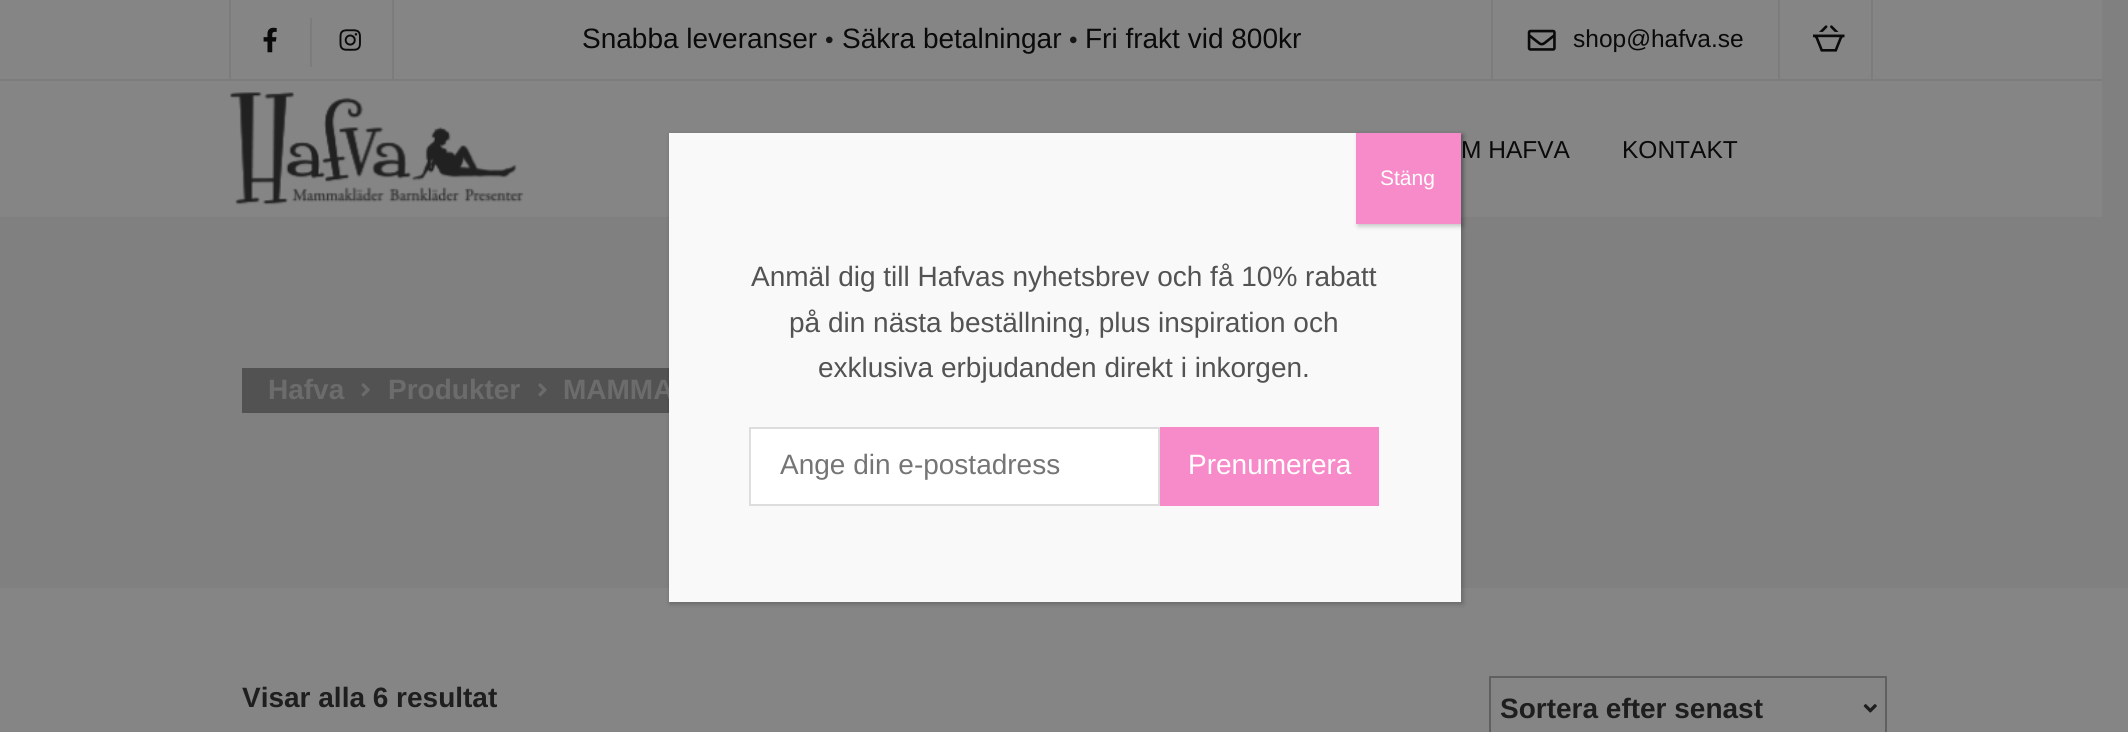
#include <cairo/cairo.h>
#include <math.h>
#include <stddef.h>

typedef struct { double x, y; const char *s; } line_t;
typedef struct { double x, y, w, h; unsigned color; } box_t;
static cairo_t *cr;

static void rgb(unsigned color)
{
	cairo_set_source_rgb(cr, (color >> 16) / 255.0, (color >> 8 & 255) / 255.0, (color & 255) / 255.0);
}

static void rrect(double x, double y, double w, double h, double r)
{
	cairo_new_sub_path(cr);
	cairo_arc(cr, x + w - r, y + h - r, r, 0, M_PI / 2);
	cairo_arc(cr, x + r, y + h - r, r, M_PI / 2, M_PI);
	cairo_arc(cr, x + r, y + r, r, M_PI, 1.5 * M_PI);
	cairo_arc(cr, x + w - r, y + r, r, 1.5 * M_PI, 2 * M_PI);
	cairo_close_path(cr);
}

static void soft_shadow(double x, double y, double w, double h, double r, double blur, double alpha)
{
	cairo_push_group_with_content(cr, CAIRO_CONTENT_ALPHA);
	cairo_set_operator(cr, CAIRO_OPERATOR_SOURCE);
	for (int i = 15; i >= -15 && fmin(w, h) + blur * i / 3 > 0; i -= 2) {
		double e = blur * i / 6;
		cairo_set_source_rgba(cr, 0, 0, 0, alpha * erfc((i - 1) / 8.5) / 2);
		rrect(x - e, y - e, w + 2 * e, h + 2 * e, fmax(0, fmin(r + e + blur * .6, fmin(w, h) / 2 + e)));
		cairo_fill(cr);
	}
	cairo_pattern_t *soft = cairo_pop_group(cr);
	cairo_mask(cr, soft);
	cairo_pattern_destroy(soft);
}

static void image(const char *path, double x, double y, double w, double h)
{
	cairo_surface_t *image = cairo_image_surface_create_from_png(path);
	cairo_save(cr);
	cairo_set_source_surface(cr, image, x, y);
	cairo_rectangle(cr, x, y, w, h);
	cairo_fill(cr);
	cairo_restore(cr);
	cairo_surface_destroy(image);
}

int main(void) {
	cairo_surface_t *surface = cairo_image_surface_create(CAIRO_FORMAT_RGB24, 2128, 732);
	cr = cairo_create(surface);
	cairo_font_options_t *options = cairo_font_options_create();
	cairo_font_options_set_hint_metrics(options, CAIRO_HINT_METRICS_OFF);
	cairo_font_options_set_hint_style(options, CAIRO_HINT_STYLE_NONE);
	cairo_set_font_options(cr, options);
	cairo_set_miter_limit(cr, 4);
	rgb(0x858585);
	cairo_paint(cr);
	{
		static const box_t items[] = {
			{0, 0, 2128, 588, 0x808080},
			{0, 0, 2102, 79, 0x858585},
			{0, 79, 2102, 2, 0x7c7c7c},
			{392, 0, 2, 79, 0x7c7c7c},
			{229, 0, 2, 79, 0x7c7c7c},
			{310, 18, 2, 49, 0x7c7c7c},
		};
		for (size_t i = 0; i < sizeof items / sizeof *items; i++) {
			rgb(items[i].color);
			cairo_rectangle(cr, items[i].x, items[i].y, items[i].w, items[i].h);
			cairo_fill(cr);
		}
	}
	image("img/1.png", 263, 27, 14, 26);
	image("img/2.png", 339, 29, 22, 22);
	cairo_rectangle(cr, 1491, 0, 2, 79);
	cairo_fill(cr);
	image("img/3.png", 1527, 29, 29, 22);
	cairo_rectangle(cr, 1871, 0, 2, 79);
	cairo_fill(cr);
	cairo_rectangle(cr, 1778, 0, 2, 79);
	cairo_fill(cr);
	image("img/4.png", 1813, 25, 32, 27);
	rgb(0x858585);
	cairo_rectangle(cr, 0, 81, 2102, 136);
	cairo_fill(cr);
	image("img/5.png", 230, 92, 294, 113);
	rgb(0x525252);
	cairo_rectangle(cr, 242, 368, 427, 45);
	cairo_fill(cr);
	rgb(0x020202);
	soft_shadow(670, 135, 793, 469, 0, 2.5, 0.23);
	image("img/6.png", 361, 383, 9, 14);
	image("img/7.png", 538, 383, 9, 14);
	cairo_rectangle(cr, 1490, 677, 396, 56);
	rgb(0x606060);
	cairo_stroke(cr);
	image("img/8.png", 1863, 704, 14, 9);
	cairo_select_font_face(cr, "Liberation Sans", CAIRO_FONT_SLANT_NORMAL, CAIRO_FONT_WEIGHT_NORMAL);
	cairo_set_font_size(cr, 28);
	rgb(0x0a0a0a);
	cairo_move_to(cr, 582, 48);
	cairo_show_text(cr, "Snabba leveranser");
	cairo_set_font_size(cr, 24.5);
	rgb(0x151617);
	cairo_move_to(cr, 825, 48);
	cairo_show_text(cr, "•");
	cairo_set_font_size(cr, 28);
	rgb(0x0a0a0a);
	cairo_move_to(cr, 842, 48);
	cairo_show_text(cr, "Säkra betalningar");
	cairo_set_font_size(cr, 24.5);
	rgb(0x151617);
	cairo_move_to(cr, 1069, 48);
	cairo_show_text(cr, "•");
	cairo_set_font_size(cr, 28);
	rgb(0x0a0a0a);
	cairo_move_to(cr, 1085, 48);
	cairo_show_text(cr, "Fri frakt vid 800kr");
	cairo_set_font_size(cr, 24.5);
	{
		static const line_t items[] = {
			{1573, 47, "shop@hafva.se"},
			{1461, 158, "M HAFVA"},
			{1622, 158, "KONTAKT"},
		};
		for (size_t i = 0; i < sizeof items / sizeof *items; i++) {
			cairo_move_to(cr, items[i].x, items[i].y);
			cairo_show_text(cr, items[i].s);
		}
	}
	cairo_select_font_face(cr, "Liberation Sans", CAIRO_FONT_SLANT_NORMAL, CAIRO_FONT_WEIGHT_BOLD);
	cairo_set_font_size(cr, 28);
	rgb(0x6c6c6c);
	{
		static const line_t items[] = {
			{268, 399, "Hafva"},
			{388, 399, "Produkter"},
			{563, 399, "MAMMA"},
		};
		for (size_t i = 0; i < sizeof items / sizeof *items; i++) {
			cairo_move_to(cr, items[i].x, items[i].y);
			cairo_show_text(cr, items[i].s);
		}
	}
	rgb(0xf9f9f9);
	cairo_rectangle(cr, 669, 133, 792, 469);
	cairo_fill(cr);
	rgb(0x020202);
	soft_shadow(1358, 135, 105, 91, 0, 2.5, 0.23);
	rgb(0xf78ac8);
	cairo_rectangle(cr, 1356, 133, 105, 91);
	cairo_fill(cr);
	cairo_select_font_face(cr, "Liberation Sans", CAIRO_FONT_SLANT_NORMAL, CAIRO_FONT_WEIGHT_NORMAL);
	cairo_set_font_size(cr, 21);
	rgb(0xffffff);
	cairo_move_to(cr, 1380, 185);
	cairo_show_text(cr, "Stäng");
	rgb(0xf78ac8);
	cairo_rectangle(cr, 1160, 427, 219, 79);
	cairo_fill(cr);
	cairo_set_font_size(cr, 28);
	rgb(0xffffff);
	cairo_move_to(cr, 1188, 474);
	cairo_show_text(cr, "Prenumerera");
	cairo_rectangle(cr, 750, 428, 409, 77);
	cairo_fill_preserve(cr);
	rgb(0xdddddd);
	cairo_stroke(cr);
	rgb(0x757575);
	cairo_move_to(cr, 780, 474);
	cairo_show_text(cr, "Ange din e-postadress");
	rgb(0x535353);
	{
		static const line_t items[] = {
			{818, 377, "exklusiva erbjudanden direkt i inkorgen."},
			{789, 332, "på din nästa beställning, plus inspiration och"},
			{751, 286, "Anmäl dig till Hafvas nyhetsbrev och få 10% rabatt"},
		};
		for (size_t i = 0; i < sizeof items / sizeof *items; i++) {
			cairo_move_to(cr, items[i].x, items[i].y);
			cairo_show_text(cr, items[i].s);
		}
	}
	cairo_select_font_face(cr, "Liberation Sans", CAIRO_FONT_SLANT_NORMAL, CAIRO_FONT_WEIGHT_BOLD);
	rgb(0x1e1e1e);
	cairo_move_to(cr, 242, 707);
	cairo_show_text(cr, "Visar alla 6 resultat");
	cairo_move_to(cr, 1500, 718);
	cairo_show_text(cr, "Sortera efter senast");
	cairo_surface_write_to_png(surface, "page.png");
	cairo_font_options_destroy(options);
	cairo_destroy(cr);
	cairo_surface_destroy(surface);
	return 0;
}
